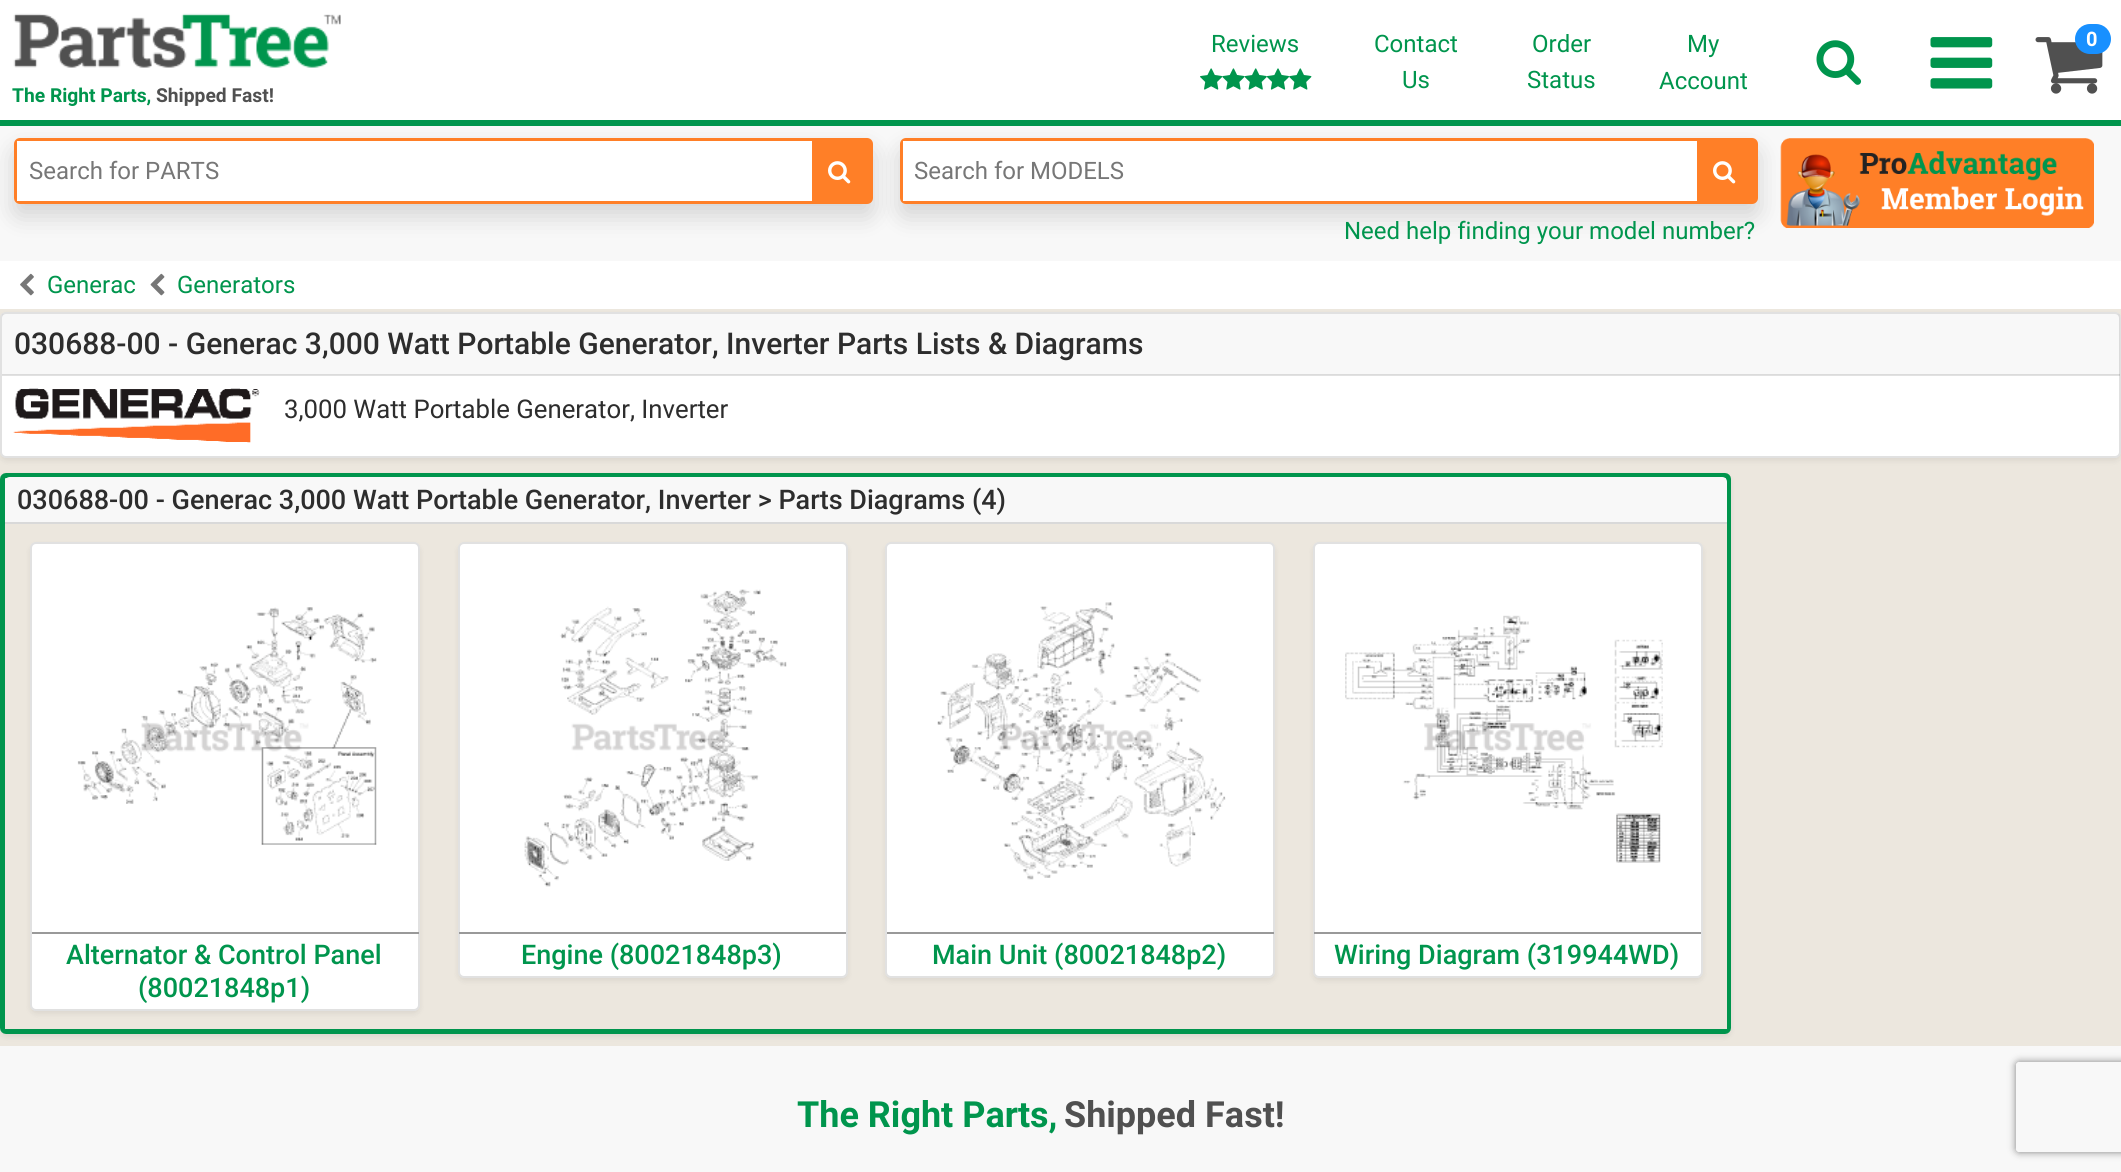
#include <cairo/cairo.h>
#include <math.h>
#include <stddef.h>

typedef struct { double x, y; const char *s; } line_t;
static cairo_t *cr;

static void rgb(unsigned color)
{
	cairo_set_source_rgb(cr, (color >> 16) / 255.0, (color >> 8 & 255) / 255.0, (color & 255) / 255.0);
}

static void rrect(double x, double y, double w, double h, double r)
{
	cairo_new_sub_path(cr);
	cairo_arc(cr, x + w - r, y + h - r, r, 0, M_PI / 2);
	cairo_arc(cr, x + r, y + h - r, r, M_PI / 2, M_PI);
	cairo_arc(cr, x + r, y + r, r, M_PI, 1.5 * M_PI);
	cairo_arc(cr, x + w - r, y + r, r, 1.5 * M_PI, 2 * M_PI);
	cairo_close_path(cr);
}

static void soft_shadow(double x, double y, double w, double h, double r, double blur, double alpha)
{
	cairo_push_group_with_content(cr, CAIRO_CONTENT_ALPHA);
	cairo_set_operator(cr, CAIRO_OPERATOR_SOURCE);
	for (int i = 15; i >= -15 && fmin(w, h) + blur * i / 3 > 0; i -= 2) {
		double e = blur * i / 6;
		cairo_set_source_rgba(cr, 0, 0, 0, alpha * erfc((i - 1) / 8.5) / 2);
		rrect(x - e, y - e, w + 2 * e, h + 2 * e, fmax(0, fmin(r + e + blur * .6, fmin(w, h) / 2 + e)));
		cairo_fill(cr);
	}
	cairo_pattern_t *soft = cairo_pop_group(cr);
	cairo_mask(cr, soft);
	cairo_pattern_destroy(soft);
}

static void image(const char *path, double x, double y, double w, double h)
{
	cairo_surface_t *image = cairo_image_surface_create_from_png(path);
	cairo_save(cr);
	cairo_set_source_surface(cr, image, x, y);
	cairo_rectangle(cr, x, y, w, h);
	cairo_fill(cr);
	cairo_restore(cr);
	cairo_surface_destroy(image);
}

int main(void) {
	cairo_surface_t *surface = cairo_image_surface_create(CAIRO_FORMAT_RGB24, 2121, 1172);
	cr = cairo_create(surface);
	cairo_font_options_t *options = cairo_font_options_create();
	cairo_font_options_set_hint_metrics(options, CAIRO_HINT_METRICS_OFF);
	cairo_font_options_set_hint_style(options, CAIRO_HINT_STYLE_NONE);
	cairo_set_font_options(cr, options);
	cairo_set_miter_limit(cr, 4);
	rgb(0xffffff);
	cairo_paint(cr);
	rgb(0x00954d);
	cairo_rectangle(cr, 0, 120, 2121, 6);
	cairo_fill(cr);
	image("img/1.png", 1200, 68, 112, 22);
	image("img/2.png", 1816, 40, 46, 45);
	image("img/3.png", 1930, 37, 63, 52);
	image("img/4.png", 2035, 37, 68, 57);
	rgb(0x1890ff);
	rrect(2075, 24, 36, 30, 15);
	cairo_fill(cr);
	image("img/5.png", 13, 13, 328, 55);
	rgb(0xf8f8f8);
	cairo_rectangle(cr, 0, 126, 2121, 135);
	cairo_fill(cr);
	rgb(0x000000);
	soft_shadow(14, 150, 859, 66, 6, 12, 0.15);
	rrect(15.5, 139.5, 856, 63, 4.5);
	rgb(0xff7f27);
	cairo_set_line_width(cr, 3);
	cairo_stroke(cr);
	rgb(0xffffff);
	cairo_rectangle(cr, 17, 141, 795, 60);
	cairo_fill(cr);
	rgb(0xff7f27);
	cairo_rectangle(cr, 812, 141, 58, 60);
	cairo_fill(cr);
	image("img/6.png", 828, 161, 23, 23);
	rgb(0x000000);
	soft_shadow(900, 150, 858, 66, 6, 12, 0.15);
	rrect(901.5, 139.5, 855, 63, 4.5);
	rgb(0xff7f27);
	cairo_stroke(cr);
	rgb(0xffffff);
	cairo_rectangle(cr, 903, 141, 794, 60);
	cairo_fill(cr);
	rgb(0xff7f27);
	cairo_rectangle(cr, 1697, 141, 58, 60);
	cairo_fill(cr);
	image("img/6.png", 1713, 161, 23, 23);
	image("img/7.png", 1780, 138, 314, 90);
	image("img/8.png", 20, 273, 14, 23);
	image("img/9.png", 150, 273, 15, 23);
	rgb(0xece7de);
	cairo_rectangle(cr, 0, 309, 2121, 737);
	cairo_fill(cr);
	rgb(0x000000);
	soft_shadow(0, 315, 2121, 146, 6, 3, 0.07);
	rgb(0xffffff);
	rrect(0, 312, 2121, 146, 6);
	cairo_fill(cr);
	rrect(1, 313, 2119, 144, 5);
	cairo_set_source_rgba(cr, 0, 0, 0, 0.12);
	cairo_set_line_width(cr, 2);
	cairo_stroke(cr);
	cairo_set_source_rgba(cr, 0, 0, 0, 0.03);
	cairo_rectangle(cr, 2, 314, 2118, 61);
	cairo_fill(cr);
	cairo_set_source_rgba(cr, 0, 0, 0, 0.12);
	cairo_rectangle(cr, 2, 374, 2118, 2);
	cairo_fill(cr);
	image("img/10.png", 13, 388, 247, 55);
	rgb(0x000000);
	soft_shadow(0, 476, 1731, 561, 6, 3, 0.07);
	rgb(0xf8f8f8);
	rrect(2.5, 475.5, 1726, 556, 3.5);
	cairo_fill_preserve(cr);
	rgb(0x00954d);
	cairo_set_line_width(cr, 5);
	cairo_stroke(cr);
	rgb(0xf8f8f8);
	cairo_new_path(cr);
	cairo_move_to(cr, 10, 477);
	cairo_line_to(cr, 1722, 477);
	cairo_curve_to(cr, 1725, 477, 1727, 479, 1727, 482);
	cairo_line_to(cr, 1727, 524);
	cairo_line_to(cr, 5, 524);
	cairo_line_to(cr, 5, 482);
	cairo_curve_to(cr, 5, 479, 7, 477, 10, 477);
	cairo_close_path(cr);
	cairo_fill(cr);
	rgb(0xd9d9d9);
	cairo_rectangle(cr, 5, 522, 1722, 2);
	cairo_fill(cr);
	rgb(0xece7de);
	cairo_rectangle(cr, 5, 524, 1722, 505);
	cairo_fill(cr);
	rgb(0x000000);
	soft_shadow(30, 545, 390, 469, 6, 3, 0.07);
	rgb(0xffffff);
	rrect(30, 542, 390, 469, 6);
	cairo_fill(cr);
	rrect(31, 543, 388, 467, 5);
	cairo_set_source_rgba(cr, 0, 0, 0, 0.12);
	cairo_set_line_width(cr, 2);
	cairo_stroke(cr);
	rgb(0x999999);
	cairo_rectangle(cr, 32, 932, 387, 2);
	cairo_fill(cr);
	image("img/11.png", 77, 607, 300, 238);
	rgb(0x000000);
	soft_shadow(458, 545, 390, 436, 6, 3, 0.07);
	rgb(0xffffff);
	rrect(458, 542, 390, 436, 6);
	cairo_fill(cr);
	rrect(459, 543, 388, 434, 5);
	cairo_set_source_rgba(cr, 0, 0, 0, 0.12);
	cairo_stroke(cr);
	rgb(0x999999);
	cairo_rectangle(cr, 459, 932, 387, 2);
	cairo_fill(cr);
	image("img/12.png", 524, 589, 263, 298);
	rgb(0x000000);
	soft_shadow(885, 545, 390, 436, 6, 3, 0.07);
	rgb(0xffffff);
	rrect(885, 542, 390, 436, 6);
	cairo_fill(cr);
	rrect(886, 543, 388, 434, 5);
	cairo_set_source_rgba(cr, 0, 0, 0, 0.12);
	cairo_stroke(cr);
	rgb(0x999999);
	cairo_rectangle(cr, 887, 932, 387, 2);
	cairo_fill(cr);
	image("img/13.png", 937, 602, 289, 278);
	rgb(0x000000);
	soft_shadow(1313, 545, 390, 436, 6, 3, 0.07);
	rgb(0xffffff);
	rrect(1313, 542, 390, 436, 6);
	cairo_fill(cr);
	rrect(1314, 543, 388, 434, 5);
	cairo_set_source_rgba(cr, 0, 0, 0, 0.12);
	cairo_stroke(cr);
	rgb(0x999999);
	cairo_rectangle(cr, 1314, 932, 387, 2);
	cairo_fill(cr);
	image("img/14.png", 1345, 615, 318, 248);
	rgb(0xf8f8f8);
	cairo_rectangle(cr, 0, 1046, 2121, 126);
	cairo_fill(cr);
	cairo_save(cr);
	cairo_set_fill_rule(cr, CAIRO_FILL_RULE_EVEN_ODD);
	cairo_new_path(cr);
	cairo_move_to(cr, 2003, 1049);
	cairo_line_to(cr, 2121, 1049);
	cairo_line_to(cr, 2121, 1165);
	cairo_line_to(cr, 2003, 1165);
	cairo_close_path(cr);
	cairo_move_to(cr, 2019, 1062);
	cairo_line_to(cr, 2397, 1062);
	cairo_curve_to(cr, 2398.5, 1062, 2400, 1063.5, 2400, 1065);
	cairo_line_to(cr, 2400, 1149);
	cairo_curve_to(cr, 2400, 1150.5, 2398.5, 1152, 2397, 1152);
	cairo_line_to(cr, 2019, 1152);
	cairo_curve_to(cr, 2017.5, 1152, 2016, 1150.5, 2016, 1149);
	cairo_line_to(cr, 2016, 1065);
	cairo_curve_to(cr, 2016, 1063.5, 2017.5, 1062, 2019, 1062);
	cairo_close_path(cr);
	cairo_clip(cr);
	rgb(0x808080);
	soft_shadow(2016, 1062, 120, 90, 3, 4, 1);
	cairo_restore(cr);
	cairo_select_font_face(cr, "Roboto", CAIRO_FONT_SLANT_NORMAL, CAIRO_FONT_WEIGHT_NORMAL);
	cairo_set_font_size(cr, 24);
	rgb(0x00954d);
	{
		static const line_t items[] = {
			{1211, 52, "Reviews"},
			{1374, 52, "Contact"},
			{1402, 88, "Us"},
			{1532, 52, "Order"},
			{1527, 88, "Status"},
			{1687, 52, "My"},
			{1659, 89, "Account"},
		};
		for (size_t i = 0; i < sizeof items / sizeof *items; i++) {
			cairo_move_to(cr, items[i].x, items[i].y);
			cairo_show_text(cr, items[i].s);
		}
	}
	cairo_select_font_face(cr, "Roboto", CAIRO_FONT_SLANT_NORMAL, CAIRO_FONT_WEIGHT_BOLD);
	cairo_set_font_size(cr, 20);
	rgb(0xffffff);
	cairo_move_to(cr, 2086, 46);
	cairo_show_text(cr, "0");
	cairo_set_font_size(cr, 19.25);
	rgb(0x00954d);
	cairo_move_to(cr, 12, 102);
	cairo_show_text(cr, "The Right Parts,");
	rgb(0x505050);
	cairo_move_to(cr, 156, 102);
	cairo_show_text(cr, "Shipped Fast!");
	cairo_select_font_face(cr, "Roboto", CAIRO_FONT_SLANT_NORMAL, CAIRO_FONT_WEIGHT_NORMAL);
	cairo_set_font_size(cr, 24);
	rgb(0x777777);
	cairo_move_to(cr, 29, 179);
	cairo_show_text(cr, "Search for PARTS");
	cairo_move_to(cr, 914, 179);
	cairo_show_text(cr, "Search for MODELS");
	rgb(0x00954d);
	{
		static const line_t items[] = {
			{1344, 239, "Need help finding your model number?"},
			{47, 293, "Generac"},
			{177, 293, "Generators"},
		};
		for (size_t i = 0; i < sizeof items / sizeof *items; i++) {
			cairo_move_to(cr, items[i].x, items[i].y);
			cairo_show_text(cr, items[i].s);
		}
	}
	cairo_select_font_face(cr, "Roboto Medium", CAIRO_FONT_SLANT_NORMAL, CAIRO_FONT_WEIGHT_NORMAL);
	cairo_set_font_size(cr, 30);
	rgb(0x2d2d2d);
	cairo_move_to(cr, 14, 354);
	cairo_show_text(cr, "030688-00 - Generac 3,000 Watt Portable Generator, Inverter Parts Lists & Diagrams");
	cairo_select_font_face(cr, "Roboto", CAIRO_FONT_SLANT_NORMAL, CAIRO_FONT_WEIGHT_NORMAL);
	cairo_set_font_size(cr, 25.75);
	cairo_move_to(cr, 284, 418);
	cairo_show_text(cr, "3,000 Watt Portable Generator, Inverter");
	cairo_select_font_face(cr, "Roboto Medium", CAIRO_FONT_SLANT_NORMAL, CAIRO_FONT_WEIGHT_NORMAL);
	cairo_set_font_size(cr, 27);
	cairo_move_to(cr, 17, 509);
	cairo_show_text(cr, "030688-00 - Generac 3,000 Watt Portable Generator, Inverter > Parts Diagrams (4)");
	rgb(0x00954d);
	{
		static const line_t items[] = {
			{66, 964, "Alternator & Control Panel"},
			{138, 997, "(80021848p1)"},
			{521, 964, "Engine (80021848p3)"},
			{932, 964, "Main Unit (80021848p2)"},
			{1334, 964, "Wiring Diagram (319944WD)"},
		};
		for (size_t i = 0; i < sizeof items / sizeof *items; i++) {
			cairo_move_to(cr, items[i].x, items[i].y);
			cairo_show_text(cr, items[i].s);
		}
	}
	cairo_select_font_face(cr, "Roboto", CAIRO_FONT_SLANT_NORMAL, CAIRO_FONT_WEIGHT_BOLD);
	cairo_set_font_size(cr, 36);
	cairo_move_to(cr, 797, 1127);
	cairo_show_text(cr, "The Right Parts,");
	rgb(0x505050);
	cairo_move_to(cr, 1064, 1127);
	cairo_show_text(cr, "Shipped Fast!");
	cairo_surface_write_to_png(surface, "page.png");
	cairo_font_options_destroy(options);
	cairo_destroy(cr);
	cairo_surface_destroy(surface);
	return 0;
}
